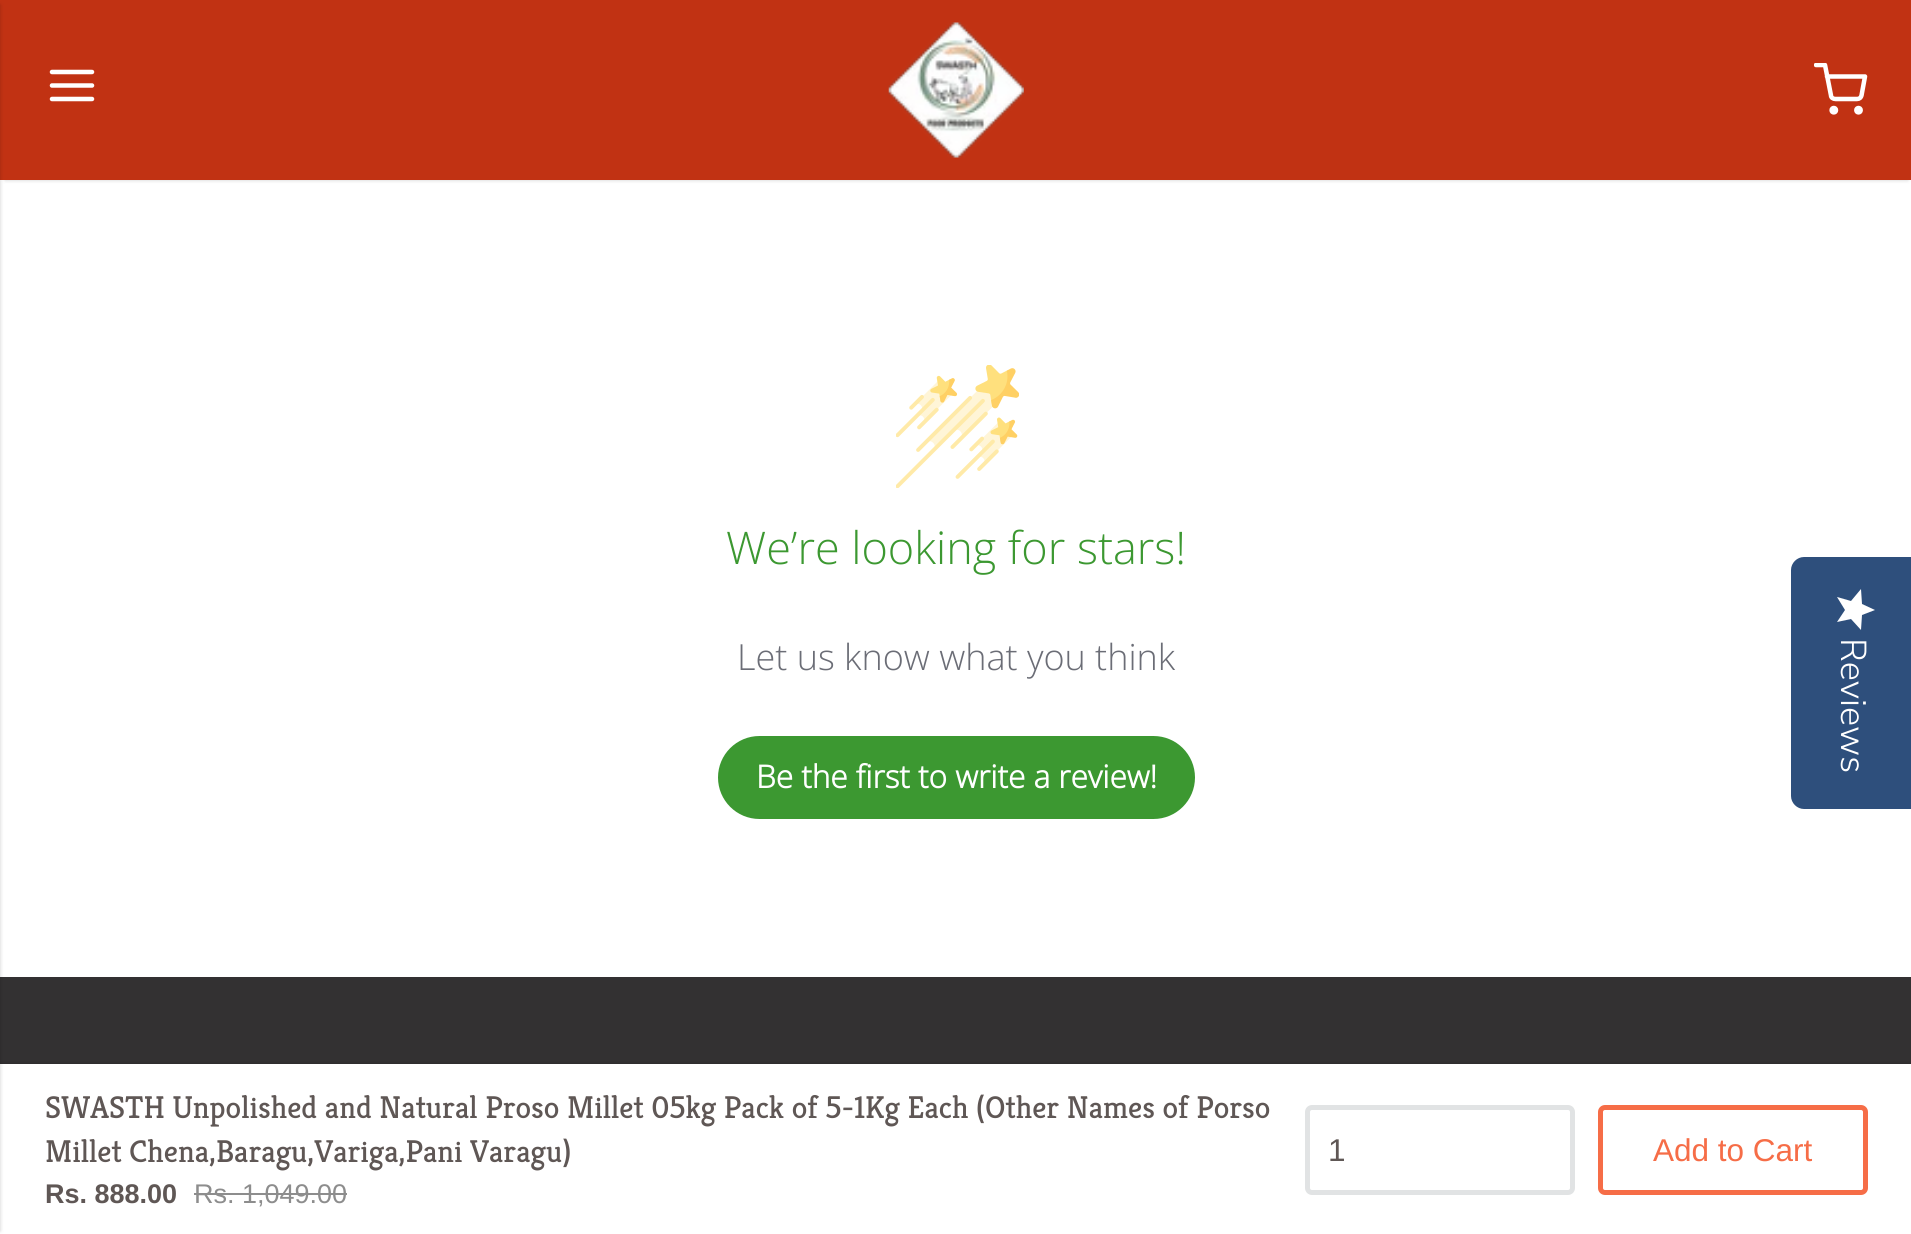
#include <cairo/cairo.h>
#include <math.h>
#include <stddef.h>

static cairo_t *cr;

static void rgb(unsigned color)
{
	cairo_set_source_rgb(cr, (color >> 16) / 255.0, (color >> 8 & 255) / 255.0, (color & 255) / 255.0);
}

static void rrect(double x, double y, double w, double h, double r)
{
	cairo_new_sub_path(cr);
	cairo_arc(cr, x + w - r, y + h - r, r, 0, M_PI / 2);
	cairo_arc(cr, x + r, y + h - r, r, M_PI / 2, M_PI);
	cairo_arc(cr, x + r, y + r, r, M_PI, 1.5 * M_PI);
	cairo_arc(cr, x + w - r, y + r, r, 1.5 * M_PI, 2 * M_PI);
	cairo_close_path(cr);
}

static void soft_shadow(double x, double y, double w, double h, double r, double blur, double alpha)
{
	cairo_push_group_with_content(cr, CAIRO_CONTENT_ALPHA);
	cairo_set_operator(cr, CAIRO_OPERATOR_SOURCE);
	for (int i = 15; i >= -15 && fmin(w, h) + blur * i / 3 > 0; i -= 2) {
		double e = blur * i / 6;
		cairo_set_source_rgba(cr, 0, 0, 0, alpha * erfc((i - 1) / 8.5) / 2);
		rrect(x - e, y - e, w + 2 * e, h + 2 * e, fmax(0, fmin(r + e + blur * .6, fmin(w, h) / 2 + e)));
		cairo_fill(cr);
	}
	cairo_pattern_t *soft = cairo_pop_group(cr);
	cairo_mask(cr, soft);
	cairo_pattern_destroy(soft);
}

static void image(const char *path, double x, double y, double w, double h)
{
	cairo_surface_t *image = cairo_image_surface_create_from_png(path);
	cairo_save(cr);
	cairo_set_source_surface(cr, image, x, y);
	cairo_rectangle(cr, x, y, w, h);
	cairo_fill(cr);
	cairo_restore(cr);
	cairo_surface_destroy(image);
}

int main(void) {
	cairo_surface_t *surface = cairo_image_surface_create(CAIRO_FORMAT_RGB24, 1911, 1234);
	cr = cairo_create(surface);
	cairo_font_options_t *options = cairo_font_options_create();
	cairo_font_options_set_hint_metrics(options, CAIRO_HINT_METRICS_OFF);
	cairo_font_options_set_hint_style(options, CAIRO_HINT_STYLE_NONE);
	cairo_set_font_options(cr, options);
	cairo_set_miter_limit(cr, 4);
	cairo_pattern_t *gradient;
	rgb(0xffffff);
	cairo_paint(cr);
	rgb(0x000000);
	soft_shadow(5, 9, 1903, 171, 0, 2, 0.2);
	rgb(0xc13213);
	cairo_rectangle(cr, 0, 0, 1911, 180);
	cairo_fill(cr);
	cairo_new_path(cr);
	cairo_move_to(cr, 52, 85.5);
	cairo_line_to(cr, 92, 85.5);
	cairo_move_to(cr, 52, 72);
	cairo_line_to(cr, 92, 72);
	cairo_move_to(cr, 52, 99);
	cairo_line_to(cr, 92, 99);
	rgb(0xffffff);
	cairo_set_line_width(cr, 4.5);
	cairo_set_line_cap(cr, CAIRO_LINE_CAP_ROUND);
	cairo_set_line_join(cr, CAIRO_LINE_JOIN_ROUND);
	cairo_stroke(cr);
	image("img/1.png", 888, 22, 136, 136);
	cairo_save(cr);
	cairo_rectangle(cr, 1814, 63, 54, 54);
	cairo_clip(cr);
	cairo_new_path(cr);
	cairo_move_to(cr, 1816, 65);
	cairo_line_to(cr, 1825, 65);
	cairo_line_to(cr, 1831, 95.5);
	cairo_curve_to(cr, 1831, 97.5, 1833, 99, 1835.5, 99);
	cairo_line_to(cr, 1857, 99);
	cairo_curve_to(cr, 1859.5, 99, 1861, 97.5, 1861.5, 95.5);
	cairo_line_to(cr, 1865, 76.5);
	cairo_line_to(cr, 1827, 76.5);
	cairo_stroke(cr);
	cairo_restore(cr);
	cairo_arc(cr, 1833.8, 110.2, 2.2, 0, 2 * M_PI);
	cairo_set_line_cap(cr, CAIRO_LINE_CAP_BUTT);
	cairo_set_line_join(cr, CAIRO_LINE_JOIN_MITER);
	cairo_stroke(cr);
	cairo_arc(cr, 1858.5, 110.2, 2.2, 0, 2 * M_PI);
	cairo_stroke(cr);
	rgb(0x333132);
	cairo_rectangle(cr, 0, 977, 1911, 87);
	cairo_fill(cr);
	rgb(0x000000);
	soft_shadow(0, 1064, 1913, 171, 0, 2, 0.2);
	rgb(0xffffff);
	cairo_rectangle(cr, 0, 1064, 1911, 170);
	cairo_fill(cr);
	rgb(0x000000);
	soft_shadow(-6, 5, 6, 1226, 0, 2, 0.2);
	image("img/2.png", 896, 365, 123, 123);
	rgb(0x3c9831);
	rrect(718, 736, 477, 83, 41.5);
	cairo_fill(cr);
	rgb(0x8d8d8d);
	cairo_rectangle(cr, 194, 1193, 153, 2);
	cairo_fill(cr);
	rrect(1307.5, 1107.5, 265, 85, 4.5);
	rgb(0xe1e3e4);
	cairo_set_line_width(cr, 5);
	cairo_stroke(cr);
	rrect(1600.5, 1107.5, 265, 85, 4.5);
	rgb(0xf66d47);
	cairo_stroke(cr);
	rgb(0x2e4f7c);
	cairo_new_path(cr);
	cairo_move_to(cr, 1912, 557);
	cairo_line_to(cr, 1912, 809);
	cairo_line_to(cr, 1804, 809);
	cairo_curve_to(cr, 1797, 809, 1791, 803, 1791, 796);
	cairo_line_to(cr, 1791, 570);
	cairo_curve_to(cr, 1791, 563, 1797, 557, 1804, 557);
	cairo_close_path(cr);
	cairo_fill(cr);
	gradient = cairo_pattern_create_linear(1875, 589, 1875, 630);
	cairo_pattern_add_color_stop_rgba(gradient, 1, 1, 1, 1, 1);
	cairo_pattern_add_color_stop_rgba(gradient, 1, 0.918, 0.918, 0.918, 1);
	cairo_set_source(cr, gradient);
	cairo_pattern_destroy(gradient);
	cairo_new_path(cr);
	cairo_move_to(cr, 1845, 610);
	cairo_line_to(cr, 1837, 622);
	cairo_line_to(cr, 1851, 619);
	cairo_line_to(cr, 1861, 630);
	cairo_line_to(cr, 1862, 615);
	cairo_line_to(cr, 1875, 610);
	cairo_line_to(cr, 1862, 604);
	cairo_line_to(cr, 1861, 589);
	cairo_line_to(cr, 1851, 601);
	cairo_line_to(cr, 1837, 597);
	cairo_close_path(cr);
	cairo_fill(cr);
	cairo_select_font_face(cr, "Open Sans Light", CAIRO_FONT_SLANT_NORMAL, CAIRO_FONT_WEIGHT_NORMAL);
	cairo_set_font_size(cr, 45);
	rgb(0x3c9831);
	cairo_move_to(cr, 726, 564);
	cairo_show_text(cr, "We’re looking for stars!");
	cairo_set_font_size(cr, 36);
	rgb(0x6b6d76);
	cairo_move_to(cr, 737, 670);
	cairo_show_text(cr, "Let us know what you think");
	cairo_select_font_face(cr, "Open Sans", CAIRO_FONT_SLANT_NORMAL, CAIRO_FONT_WEIGHT_BOLD);
	cairo_set_font_size(cr, 31.5);
	rgb(0xffffff);
	cairo_move_to(cr, 756, 788);
	cairo_show_text(cr, "Be the first to write a review!");
	cairo_select_font_face(cr, "Kreon", CAIRO_FONT_SLANT_NORMAL, CAIRO_FONT_WEIGHT_NORMAL);
	rgb(0x5f5755);
	cairo_move_to(cr, 45, 1118);
	cairo_show_text(cr, "SWASTH Unpolished and Natural Proso Millet 05kg Pack of 5-1Kg Each (Other Names of Porso");
	cairo_move_to(cr, 45, 1162);
	cairo_show_text(cr, "Millet Chena,Baragu,Variga,Pani Varagu)");
	cairo_select_font_face(cr, "Liberation Sans", CAIRO_FONT_SLANT_NORMAL, CAIRO_FONT_WEIGHT_BOLD);
	cairo_set_font_size(cr, 27);
	cairo_move_to(cr, 45, 1203);
	cairo_show_text(cr, "Rs. 888.00");
	cairo_select_font_face(cr, "Liberation Sans", CAIRO_FONT_SLANT_NORMAL, CAIRO_FONT_WEIGHT_NORMAL);
	rgb(0x8d8d8d);
	cairo_move_to(cr, 194, 1203);
	cairo_show_text(cr, "Rs. 1,049.00");
	cairo_set_font_size(cr, 31.5);
	rgb(0x5f5755);
	cairo_move_to(cr, 1328, 1161);
	cairo_show_text(cr, "1");
	rgb(0xf66d47);
	cairo_move_to(cr, 1653, 1161);
	cairo_show_text(cr, "Add to Cart");
	cairo_select_font_face(cr, "Nunito Sans Light", CAIRO_FONT_SLANT_NORMAL, CAIRO_FONT_WEIGHT_NORMAL);
	cairo_set_font_size(cr, 36);
	rgb(0xffffff);
	cairo_save(cr);
	cairo_translate(cr, 1841, 638);
	cairo_rotate(cr, 90 * M_PI / 180);
	cairo_move_to(cr, 0, 0);
	cairo_show_text(cr, "Reviews");
	cairo_restore(cr);
	cairo_surface_write_to_png(surface, "page.png");
	cairo_font_options_destroy(options);
	cairo_destroy(cr);
	cairo_surface_destroy(surface);
	return 0;
}
